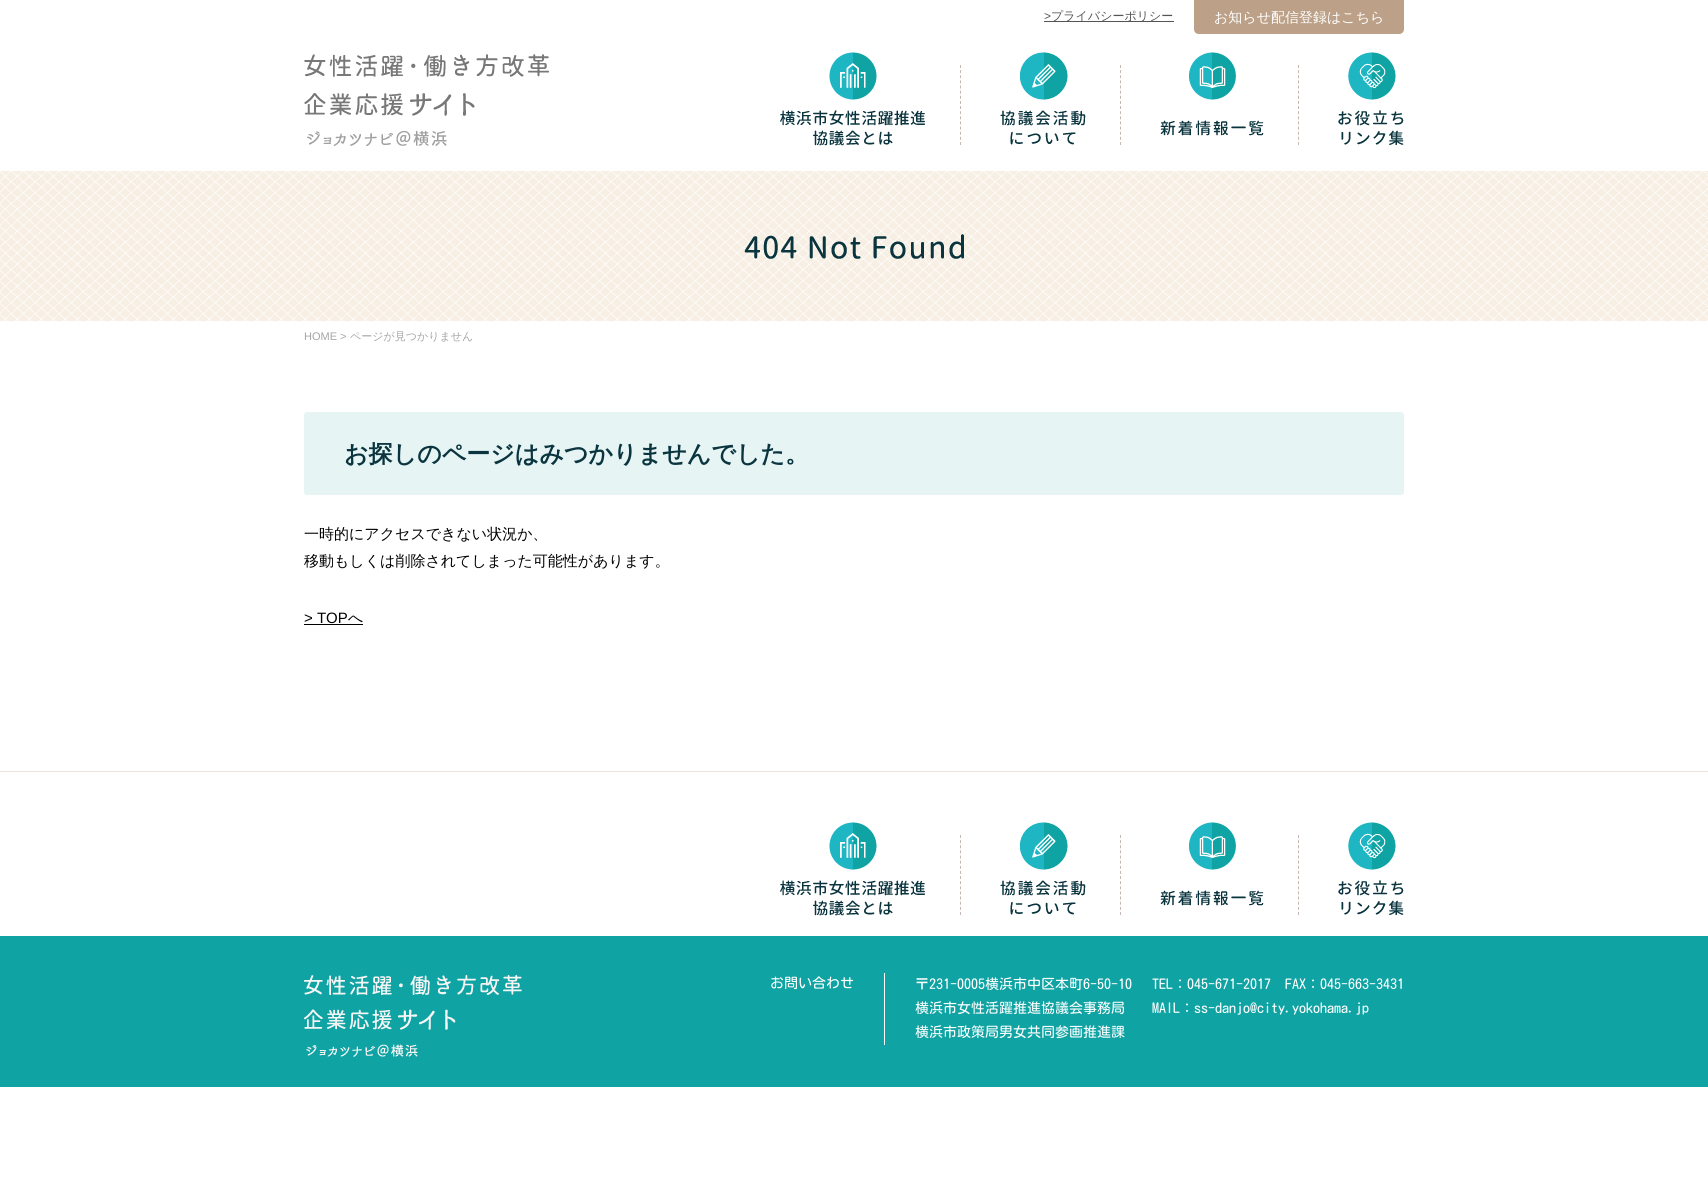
#include <cairo/cairo.h>
#include <math.h>
#include <stddef.h>

typedef struct { double x, y; const char *s; } line_t;
static cairo_t *cr;

static void rgb(unsigned color)
{
	cairo_set_source_rgb(cr, (color >> 16) / 255.0, (color >> 8 & 255) / 255.0, (color & 255) / 255.0);
}

static void rrect(double x, double y, double w, double h, double r)
{
	cairo_new_sub_path(cr);
	cairo_arc(cr, x + w - r, y + h - r, r, 0, M_PI / 2);
	cairo_arc(cr, x + r, y + h - r, r, M_PI / 2, M_PI);
	cairo_arc(cr, x + r, y + r, r, M_PI, 1.5 * M_PI);
	cairo_arc(cr, x + w - r, y + r, r, 1.5 * M_PI, 2 * M_PI);
	cairo_close_path(cr);
}

static void image(const char *path, double x, double y, double w, double h)
{
	cairo_surface_t *image = cairo_image_surface_create_from_png(path);
	cairo_save(cr);
	cairo_set_source_surface(cr, image, x, y);
	cairo_rectangle(cr, x, y, w, h);
	cairo_fill(cr);
	cairo_restore(cr);
	cairo_surface_destroy(image);
}

int main(void) {
	cairo_surface_t *surface = cairo_image_surface_create(CAIRO_FORMAT_RGB24, 1708, 1190);
	cr = cairo_create(surface);
	cairo_font_options_t *options = cairo_font_options_create();
	cairo_font_options_set_hint_metrics(options, CAIRO_HINT_METRICS_OFF);
	cairo_font_options_set_hint_style(options, CAIRO_HINT_STYLE_NONE);
	cairo_set_font_options(cr, options);
	cairo_set_miter_limit(cr, 4);
	rgb(0xffffff);
	cairo_paint(cr);
	rgb(0x545454);
	cairo_rectangle(cr, 1044, 21, 130, 1);
	cairo_fill(cr);
	rgb(0xbca188);
	cairo_new_path(cr);
	cairo_move_to(cr, 1194, -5);
	cairo_line_to(cr, 1404, -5);
	cairo_line_to(cr, 1404, 29);
	cairo_curve_to(cr, 1404, 32, 1402, 34, 1399, 34);
	cairo_line_to(cr, 1199, 34);
	cairo_curve_to(cr, 1196, 34, 1194, 32, 1194, 29);
	cairo_close_path(cr);
	cairo_fill(cr);
	image("img/1.png", 304, 54, 245, 92);
	image("img/2.png", 780, 52, 145, 94);
	cairo_new_path(cr);
	cairo_move_to(cr, 960.5, 65);
	cairo_line_to(cr, 960.5, 145);
	rgb(0xc4b8b1);
	cairo_set_line_width(cr, 1);
	cairo_set_dash(cr, (double[]){3, 2.13}, 2, 0);
	cairo_stroke(cr);
	image("img/3.png", 1000, 52, 86, 93);
	cairo_new_path(cr);
	cairo_move_to(cr, 1120.5, 65);
	cairo_line_to(cr, 1120.5, 145);
	cairo_stroke(cr);
	image("img/4.png", 1160, 52, 104, 84);
	cairo_new_path(cr);
	cairo_move_to(cr, 1298.5, 65);
	cairo_line_to(cr, 1298.5, 145);
	cairo_stroke(cr);
	image("img/5.png", 1338, 52, 66, 93);
	image("img/6.png", 0, 171, 1708, 150);
	image("img/7.png", 744, 234, 220, 25);
	rgb(0xe6f4f4);
	rrect(304, 412, 1100, 83, 3);
	cairo_fill(cr);
	rgb(0x000000);
	cairo_rectangle(cr, 304, 624, 59, 1);
	cairo_fill(cr);
	rgb(0xefe3dc);
	cairo_rectangle(cr, 0, 771, 1708, 1);
	cairo_fill(cr);
	image("img/2.png", 780, 822, 145, 94);
	cairo_new_path(cr);
	cairo_move_to(cr, 960.5, 835);
	cairo_line_to(cr, 960.5, 915);
	rgb(0xc4b8b1);
	cairo_stroke(cr);
	image("img/3.png", 1000, 822, 86, 93);
	cairo_new_path(cr);
	cairo_move_to(cr, 1120.5, 835);
	cairo_line_to(cr, 1120.5, 915);
	cairo_stroke(cr);
	image("img/4.png", 1160, 822, 104, 84);
	cairo_new_path(cr);
	cairo_move_to(cr, 1298.5, 835);
	cairo_line_to(cr, 1298.5, 915);
	cairo_stroke(cr);
	image("img/5.png", 1338, 822, 66, 93);
	rgb(0x0fa3a3);
	cairo_rectangle(cr, 0, 936, 1708, 151);
	cairo_fill(cr);
	image("img/8.png", 304, 975, 218, 82);
	rgb(0xffffff);
	cairo_rectangle(cr, 884, 973, 1, 72);
	cairo_fill(cr);
	cairo_select_font_face(cr, "Liberation Sans", CAIRO_FONT_SLANT_NORMAL, CAIRO_FONT_WEIGHT_NORMAL);
	cairo_set_font_size(cr, 12);
	rgb(0x545454);
	cairo_move_to(cr, 1044, 20);
	cairo_show_text(cr, ">");
	cairo_select_font_face(cr, "WenQuanYi Zen Hei Medium", CAIRO_FONT_SLANT_NORMAL, CAIRO_FONT_WEIGHT_NORMAL);
	cairo_move_to(cr, 1051, 20);
	cairo_show_text(cr, "プライバシーポリシー");
	cairo_set_font_size(cr, 14);
	rgb(0xffffff);
	cairo_move_to(cr, 1214, 22);
	cairo_show_text(cr, "お知らせ配信登録はこちら");
	cairo_select_font_face(cr, "Liberation Sans", CAIRO_FONT_SLANT_NORMAL, CAIRO_FONT_WEIGHT_NORMAL);
	cairo_set_font_size(cr, 11);
	rgb(0xa5a5a5);
	cairo_move_to(cr, 304, 340);
	cairo_show_text(cr, "HOME >");
	cairo_select_font_face(cr, "WenQuanYi Zen Hei Medium", CAIRO_FONT_SLANT_NORMAL, CAIRO_FONT_WEIGHT_NORMAL);
	cairo_move_to(cr, 350, 340);
	cairo_show_text(cr, "ページが見つかりません");
	cairo_select_font_face(cr, "WenQuanYi Zen Hei", CAIRO_FONT_SLANT_NORMAL, CAIRO_FONT_WEIGHT_BOLD);
	cairo_set_font_size(cr, 24);
	rgb(0x0a353f);
	cairo_move_to(cr, 344, 462);
	cairo_show_text(cr, "お探しのページはみつかりませんでした。");
	cairo_select_font_face(cr, "WenQuanYi Zen Hei Medium", CAIRO_FONT_SLANT_NORMAL, CAIRO_FONT_WEIGHT_NORMAL);
	cairo_set_font_size(cr, 15);
	rgb(0x000000);
	cairo_move_to(cr, 304, 539);
	cairo_show_text(cr, "一時的にアクセスできない状況か、");
	cairo_move_to(cr, 304, 566);
	cairo_show_text(cr, "移動もしくは削除されてしまった可能性があります。");
	cairo_select_font_face(cr, "Liberation Sans", CAIRO_FONT_SLANT_NORMAL, CAIRO_FONT_WEIGHT_NORMAL);
	cairo_move_to(cr, 304, 623);
	cairo_show_text(cr, "> TOP");
	cairo_select_font_face(cr, "WenQuanYi Zen Hei Medium", CAIRO_FONT_SLANT_NORMAL, CAIRO_FONT_WEIGHT_NORMAL);
	cairo_move_to(cr, 348, 623);
	cairo_show_text(cr, "へ");
	cairo_select_font_face(cr, "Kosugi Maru", CAIRO_FONT_SLANT_NORMAL, CAIRO_FONT_WEIGHT_NORMAL);
	cairo_set_font_size(cr, 14);
	rgb(0xffffff);
	{
		static const line_t items[] = {
			{770, 988, "お問い合わせ"},
			{915, 989, "〒231-0005横浜市中区本町6-50-10"},
			{915, 1013, "横浜市女性活躍推進協議会事務局"},
			{915, 1037, "横浜市政策局男女共同参画推進課"},
			{1152, 989, "TEL：045-671-2017　FAX：045-663-3431"},
			{1152, 1013, "MAIL：ss-danjo@city.yokohama.jp"},
		};
		for (size_t i = 0; i < sizeof items / sizeof *items; i++) {
			cairo_move_to(cr, items[i].x, items[i].y);
			cairo_show_text(cr, items[i].s);
		}
	}
	cairo_surface_write_to_png(surface, "page.png");
	cairo_font_options_destroy(options);
	cairo_destroy(cr);
	cairo_surface_destroy(surface);
	return 0;
}
